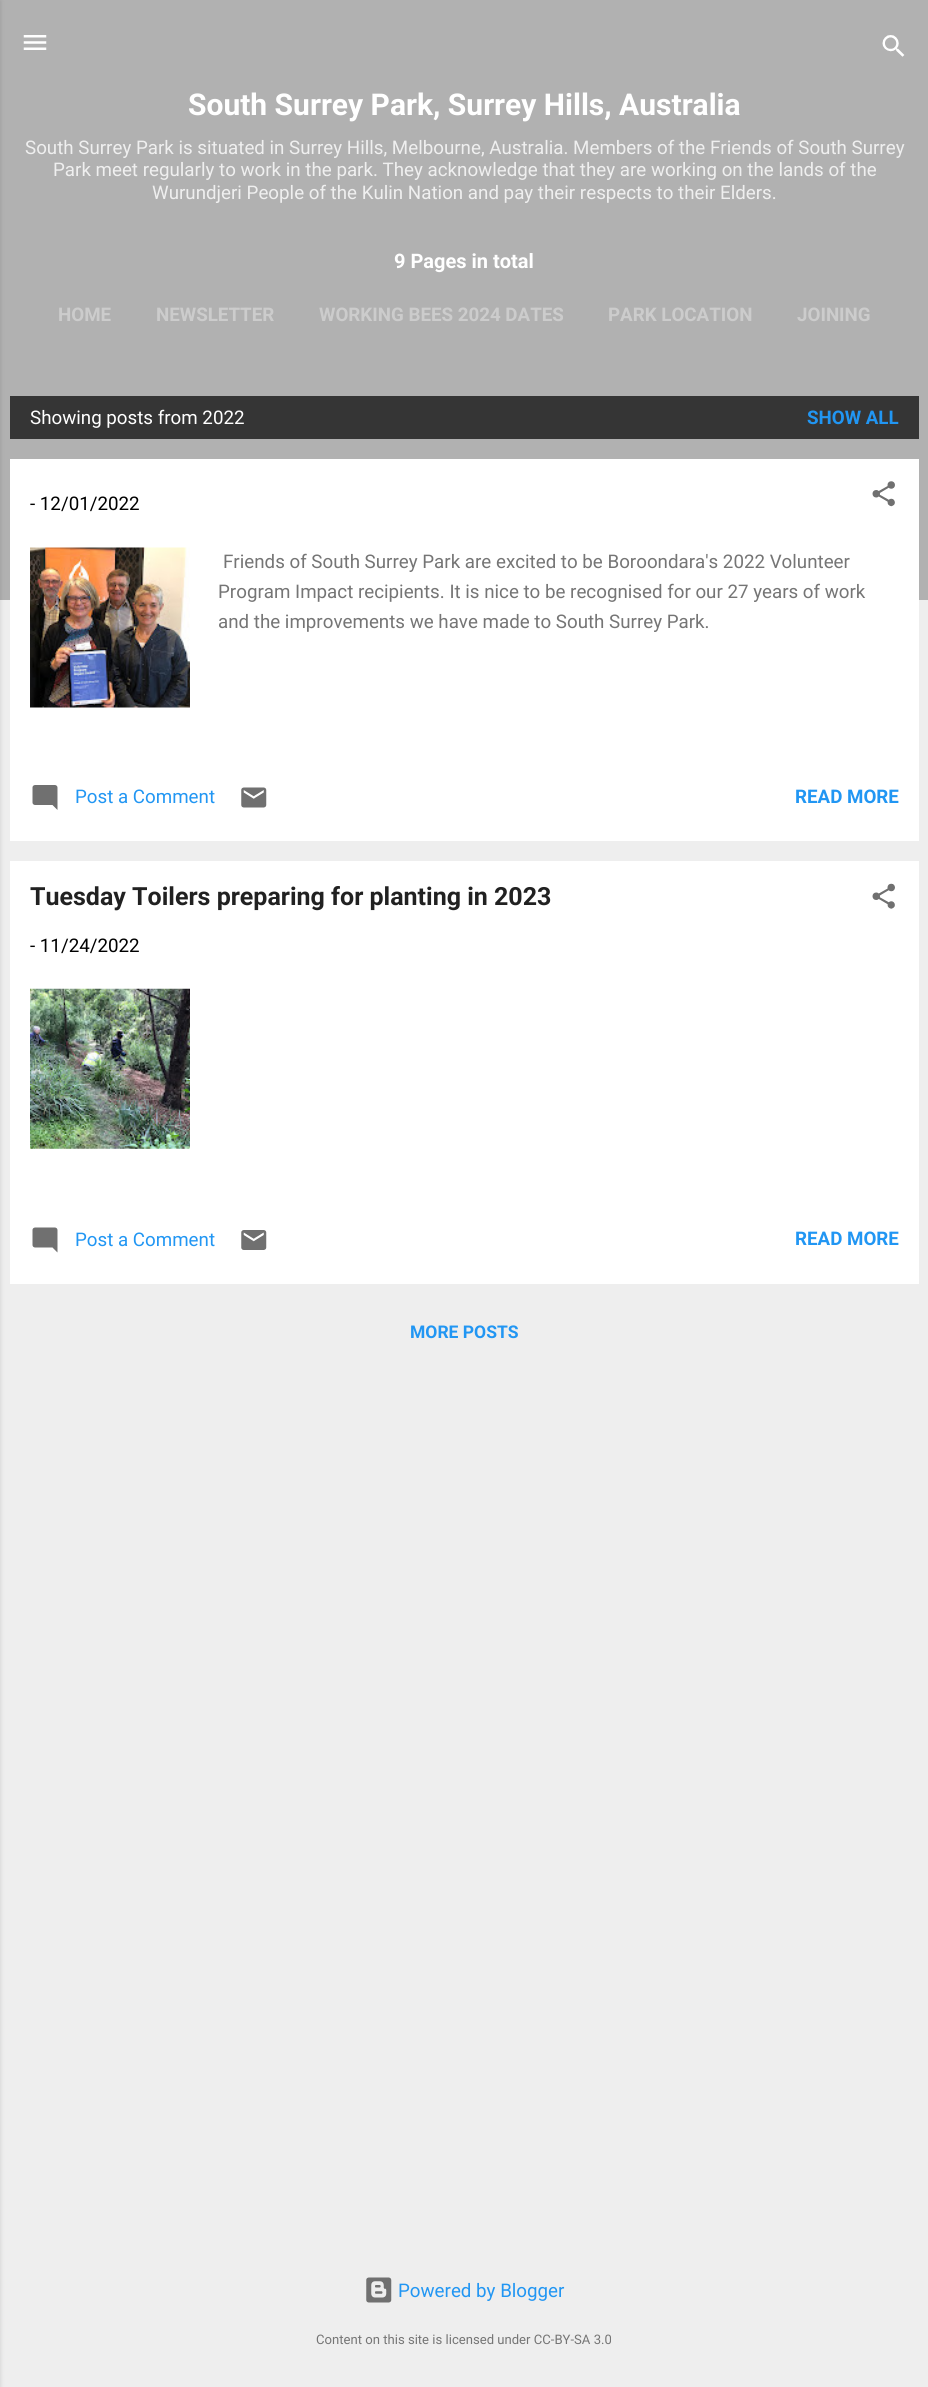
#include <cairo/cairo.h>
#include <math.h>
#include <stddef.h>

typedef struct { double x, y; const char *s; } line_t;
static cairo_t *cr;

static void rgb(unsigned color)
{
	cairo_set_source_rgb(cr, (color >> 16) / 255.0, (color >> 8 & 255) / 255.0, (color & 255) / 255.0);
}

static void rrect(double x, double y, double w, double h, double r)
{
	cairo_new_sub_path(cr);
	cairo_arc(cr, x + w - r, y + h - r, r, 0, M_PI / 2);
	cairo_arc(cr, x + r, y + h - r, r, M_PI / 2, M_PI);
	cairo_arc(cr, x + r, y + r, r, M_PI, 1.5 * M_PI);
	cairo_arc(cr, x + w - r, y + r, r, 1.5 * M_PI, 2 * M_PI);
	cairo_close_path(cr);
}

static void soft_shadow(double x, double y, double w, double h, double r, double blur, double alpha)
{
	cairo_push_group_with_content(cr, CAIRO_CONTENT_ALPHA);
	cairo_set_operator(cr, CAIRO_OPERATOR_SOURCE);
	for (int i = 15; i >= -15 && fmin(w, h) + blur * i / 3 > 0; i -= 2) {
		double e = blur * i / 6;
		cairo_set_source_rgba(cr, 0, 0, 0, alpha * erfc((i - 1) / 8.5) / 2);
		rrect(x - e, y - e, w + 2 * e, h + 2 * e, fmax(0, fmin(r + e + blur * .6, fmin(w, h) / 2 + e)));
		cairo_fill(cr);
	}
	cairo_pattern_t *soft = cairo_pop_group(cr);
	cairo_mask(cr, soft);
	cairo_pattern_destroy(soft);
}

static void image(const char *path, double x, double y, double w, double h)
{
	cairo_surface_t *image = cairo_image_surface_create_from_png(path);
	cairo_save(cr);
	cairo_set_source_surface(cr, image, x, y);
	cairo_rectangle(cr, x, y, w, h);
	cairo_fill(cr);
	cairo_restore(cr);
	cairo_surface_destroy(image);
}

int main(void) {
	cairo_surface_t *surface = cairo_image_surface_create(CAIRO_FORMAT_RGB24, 928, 2387);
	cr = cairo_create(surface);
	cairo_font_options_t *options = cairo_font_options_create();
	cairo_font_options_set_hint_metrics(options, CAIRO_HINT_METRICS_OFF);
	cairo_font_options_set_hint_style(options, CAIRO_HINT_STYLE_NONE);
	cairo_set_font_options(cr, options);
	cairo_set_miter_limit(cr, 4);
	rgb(0xeeeeee);
	cairo_paint(cr);
	rgb(0xb1b1b1);
	cairo_rectangle(cr, 0, 0, 928, 600);
	cairo_fill(cr);
	rgb(0x000000);
	soft_shadow(-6, 1, 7, 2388, 0, 2, 0.1);
	image("img/1.png", 23, 35, 24, 15);
	image("img/2.png", 882, 35, 23, 22);
	rgb(0x353535);
	cairo_rectangle(cr, 10, 396, 909, 43);
	cairo_fill(cr);
	rgb(0xffffff);
	cairo_rectangle(cr, 10, 459, 909, 382);
	cairo_fill(cr);
	image("img/3.png", 872, 481, 23, 26);
	image("img/4.png", 30, 547, 160, 161);
	image("img/5.png", 32, 785, 26, 25);
	image("img/6.png", 241, 787, 26, 21);
	cairo_rectangle(cr, 10, 861, 909, 423);
	cairo_fill(cr);
	image("img/7.png", 872, 883, 23, 26);
	image("img/8.png", 30, 988, 160, 161);
	image("img/9.png", 32, 1227, 26, 26);
	image("img/10.png", 241, 1230, 26, 20);
	image("img/11.png", 366, 2277, 26, 26);
	cairo_select_font_face(cr, "Roboto", CAIRO_FONT_SLANT_NORMAL, CAIRO_FONT_WEIGHT_BOLD);
	cairo_set_font_size(cr, 30);
	cairo_move_to(cr, 188, 115);
	cairo_show_text(cr, "South Surrey Park, Surrey Hills, Australia");
	cairo_select_font_face(cr, "Roboto", CAIRO_FONT_SLANT_NORMAL, CAIRO_FONT_WEIGHT_NORMAL);
	cairo_set_font_size(cr, 18.75);
	rgb(0xefefef);
	{
		static const line_t items[] = {
			{25, 154, "South Surrey Park is situated in Surrey Hills, Melbourne, Australia. Members of the Friends of South Surrey"},
			{53, 176, "Park meet regularly to work in the park. They acknowledge that they are working on the lands of the"},
			{152, 199, "Wurundjeri People of the Kulin Nation and pay their respects to their Elders."},
		};
		for (size_t i = 0; i < sizeof items / sizeof *items; i++) {
			cairo_move_to(cr, items[i].x, items[i].y);
			cairo_show_text(cr, items[i].s);
		}
	}
	cairo_select_font_face(cr, "Roboto", CAIRO_FONT_SLANT_NORMAL, CAIRO_FONT_WEIGHT_BOLD);
	cairo_set_font_size(cr, 20);
	rgb(0xffffff);
	cairo_move_to(cr, 394, 268);
	cairo_show_text(cr, "9 Pages in total");
	cairo_set_font_size(cr, 18.75);
	rgb(0xcccccc);
	{
		static const line_t items[] = {
			{58, 321, "HOME"},
			{156, 321, "NEWSLETTER"},
			{319, 321, "WORKING BEES 2024 DATES"},
			{608, 321, "PARK LOCATION"},
			{797, 321, "JOINING"},
		};
		for (size_t i = 0; i < sizeof items / sizeof *items; i++) {
			cairo_move_to(cr, items[i].x, items[i].y);
			cairo_show_text(cr, items[i].s);
		}
	}
	cairo_select_font_face(cr, "Roboto", CAIRO_FONT_SLANT_NORMAL, CAIRO_FONT_WEIGHT_NORMAL);
	rgb(0xffffff);
	cairo_move_to(cr, 30, 424);
	cairo_show_text(cr, "Showing posts from 2022");
	cairo_select_font_face(cr, "Roboto", CAIRO_FONT_SLANT_NORMAL, CAIRO_FONT_WEIGHT_BOLD);
	rgb(0x2196f3);
	cairo_move_to(cr, 807, 424);
	cairo_show_text(cr, "SHOW ALL");
	cairo_select_font_face(cr, "Roboto", CAIRO_FONT_SLANT_NORMAL, CAIRO_FONT_WEIGHT_NORMAL);
	rgb(0x000000);
	cairo_move_to(cr, 30, 510);
	cairo_show_text(cr, "- 12/01/2022");
	rgb(0x757575);
	{
		static const line_t items[] = {
			{223, 568, "Friends of South Surrey Park are excited to be Boroondara's 2022 Volunteer"},
			{218, 598, "Program Impact recipients. It is nice to be recognised for our 27 years of work"},
			{218, 628, "and the improvements we have made to South Surrey Park."},
		};
		for (size_t i = 0; i < sizeof items / sizeof *items; i++) {
			cairo_move_to(cr, items[i].x, items[i].y);
			cairo_show_text(cr, items[i].s);
		}
	}
	rgb(0x2196f3);
	cairo_move_to(cr, 75, 803);
	cairo_show_text(cr, "Post a Comment");
	cairo_select_font_face(cr, "Roboto", CAIRO_FONT_SLANT_NORMAL, CAIRO_FONT_WEIGHT_BOLD);
	cairo_move_to(cr, 795, 803);
	cairo_show_text(cr, "READ MORE");
	cairo_set_font_size(cr, 25);
	rgb(0x212121);
	cairo_move_to(cr, 30, 905);
	cairo_show_text(cr, "Tuesday Toilers preparing for planting in 2023");
	cairo_select_font_face(cr, "Roboto", CAIRO_FONT_SLANT_NORMAL, CAIRO_FONT_WEIGHT_NORMAL);
	cairo_set_font_size(cr, 18.75);
	rgb(0x000000);
	cairo_move_to(cr, 30, 952);
	cairo_show_text(cr, "- 11/24/2022");
	rgb(0x2196f3);
	cairo_move_to(cr, 75, 1246);
	cairo_show_text(cr, "Post a Comment");
	cairo_select_font_face(cr, "Roboto", CAIRO_FONT_SLANT_NORMAL, CAIRO_FONT_WEIGHT_BOLD);
	cairo_move_to(cr, 795, 1245);
	cairo_show_text(cr, "READ MORE");
	cairo_set_font_size(cr, 17.5);
	cairo_move_to(cr, 410, 1338);
	cairo_show_text(cr, "MORE POSTS");
	cairo_select_font_face(cr, "Roboto", CAIRO_FONT_SLANT_NORMAL, CAIRO_FONT_WEIGHT_NORMAL);
	cairo_set_font_size(cr, 18.75);
	cairo_move_to(cr, 398, 2297);
	cairo_show_text(cr, "Powered by Blogger");
	cairo_set_font_size(cr, 13.1);
	rgb(0x757575);
	cairo_move_to(cr, 316, 2344);
	cairo_show_text(cr, "Content on this site is licensed under CC-BY-SA 3.0");
	cairo_surface_write_to_png(surface, "page.png");
	cairo_font_options_destroy(options);
	cairo_destroy(cr);
	cairo_surface_destroy(surface);
	return 0;
}
